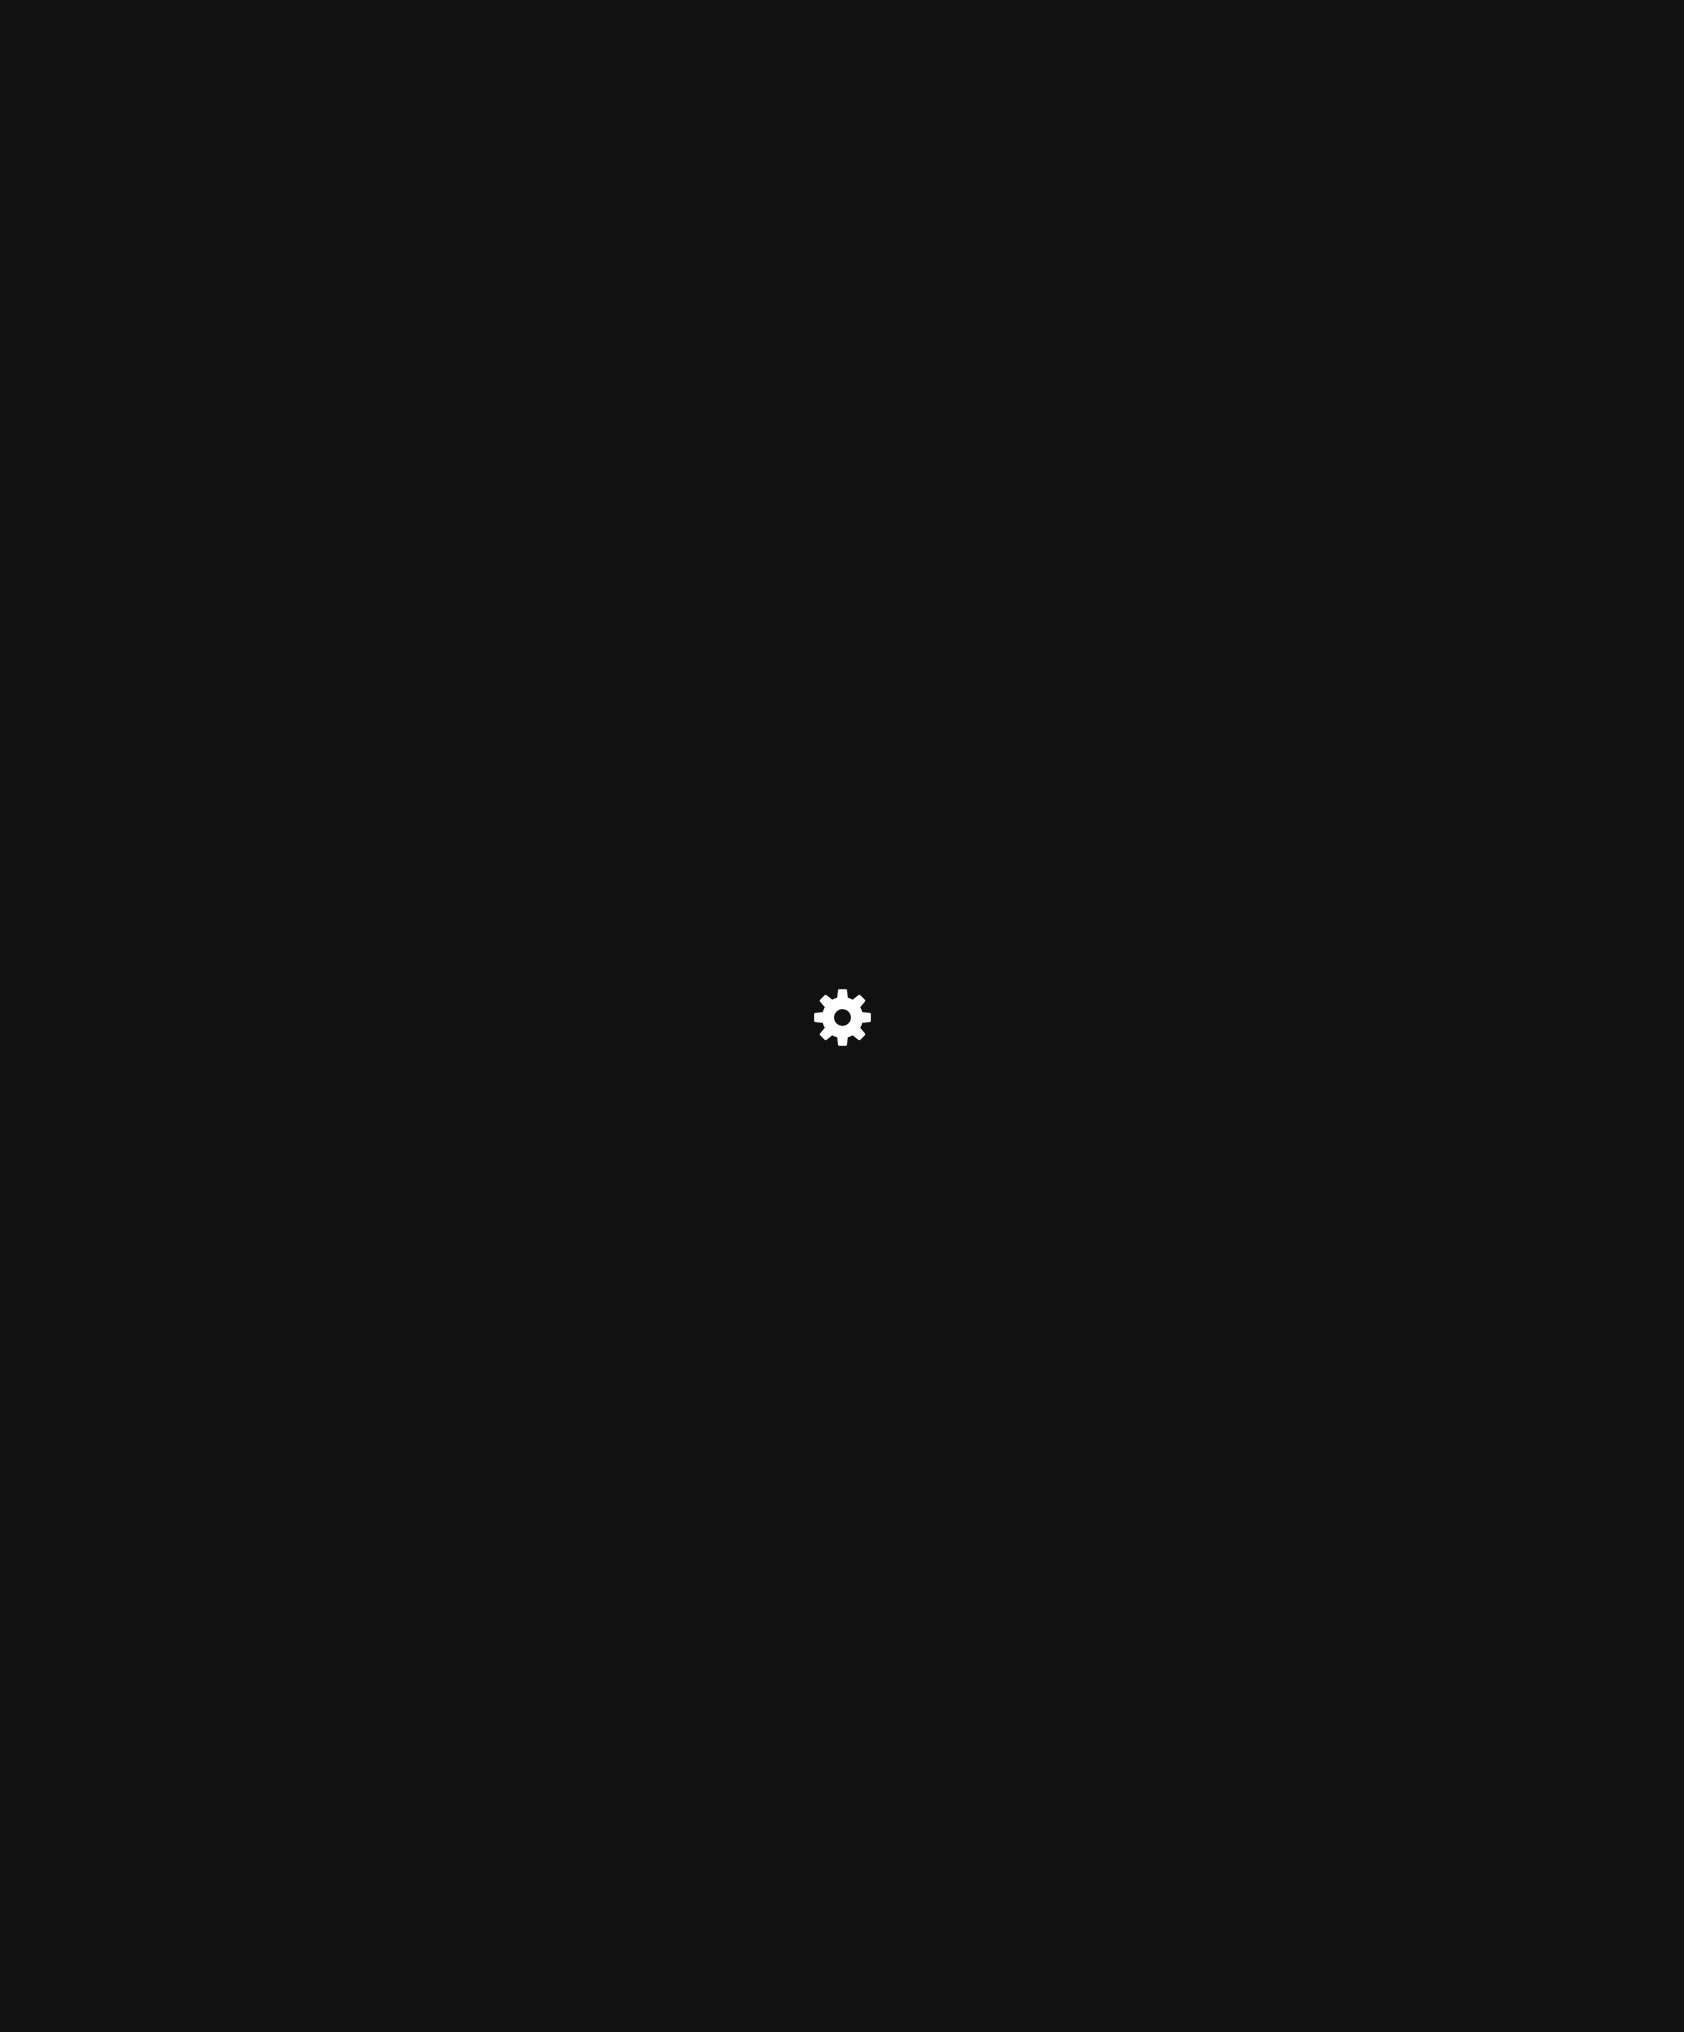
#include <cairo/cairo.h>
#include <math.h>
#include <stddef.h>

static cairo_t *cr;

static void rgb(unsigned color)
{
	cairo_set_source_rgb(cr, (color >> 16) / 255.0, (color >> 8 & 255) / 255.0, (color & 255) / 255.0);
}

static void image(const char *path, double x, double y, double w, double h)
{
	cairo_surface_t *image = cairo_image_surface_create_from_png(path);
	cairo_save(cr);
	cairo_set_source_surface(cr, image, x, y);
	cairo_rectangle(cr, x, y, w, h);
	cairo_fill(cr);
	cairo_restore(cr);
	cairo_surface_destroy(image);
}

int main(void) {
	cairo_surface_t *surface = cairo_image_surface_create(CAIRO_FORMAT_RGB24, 1684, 2032);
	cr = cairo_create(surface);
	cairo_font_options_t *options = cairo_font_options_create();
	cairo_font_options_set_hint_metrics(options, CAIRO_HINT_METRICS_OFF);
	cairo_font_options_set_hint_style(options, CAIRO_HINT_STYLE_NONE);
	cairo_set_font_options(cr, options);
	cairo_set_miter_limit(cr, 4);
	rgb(0x111111);
	cairo_paint(cr);
	image("img/1.png", 814, 989, 57, 57);
	cairo_surface_write_to_png(surface, "page.png");
	cairo_font_options_destroy(options);
	cairo_destroy(cr);
	cairo_surface_destroy(surface);
	return 0;
}
